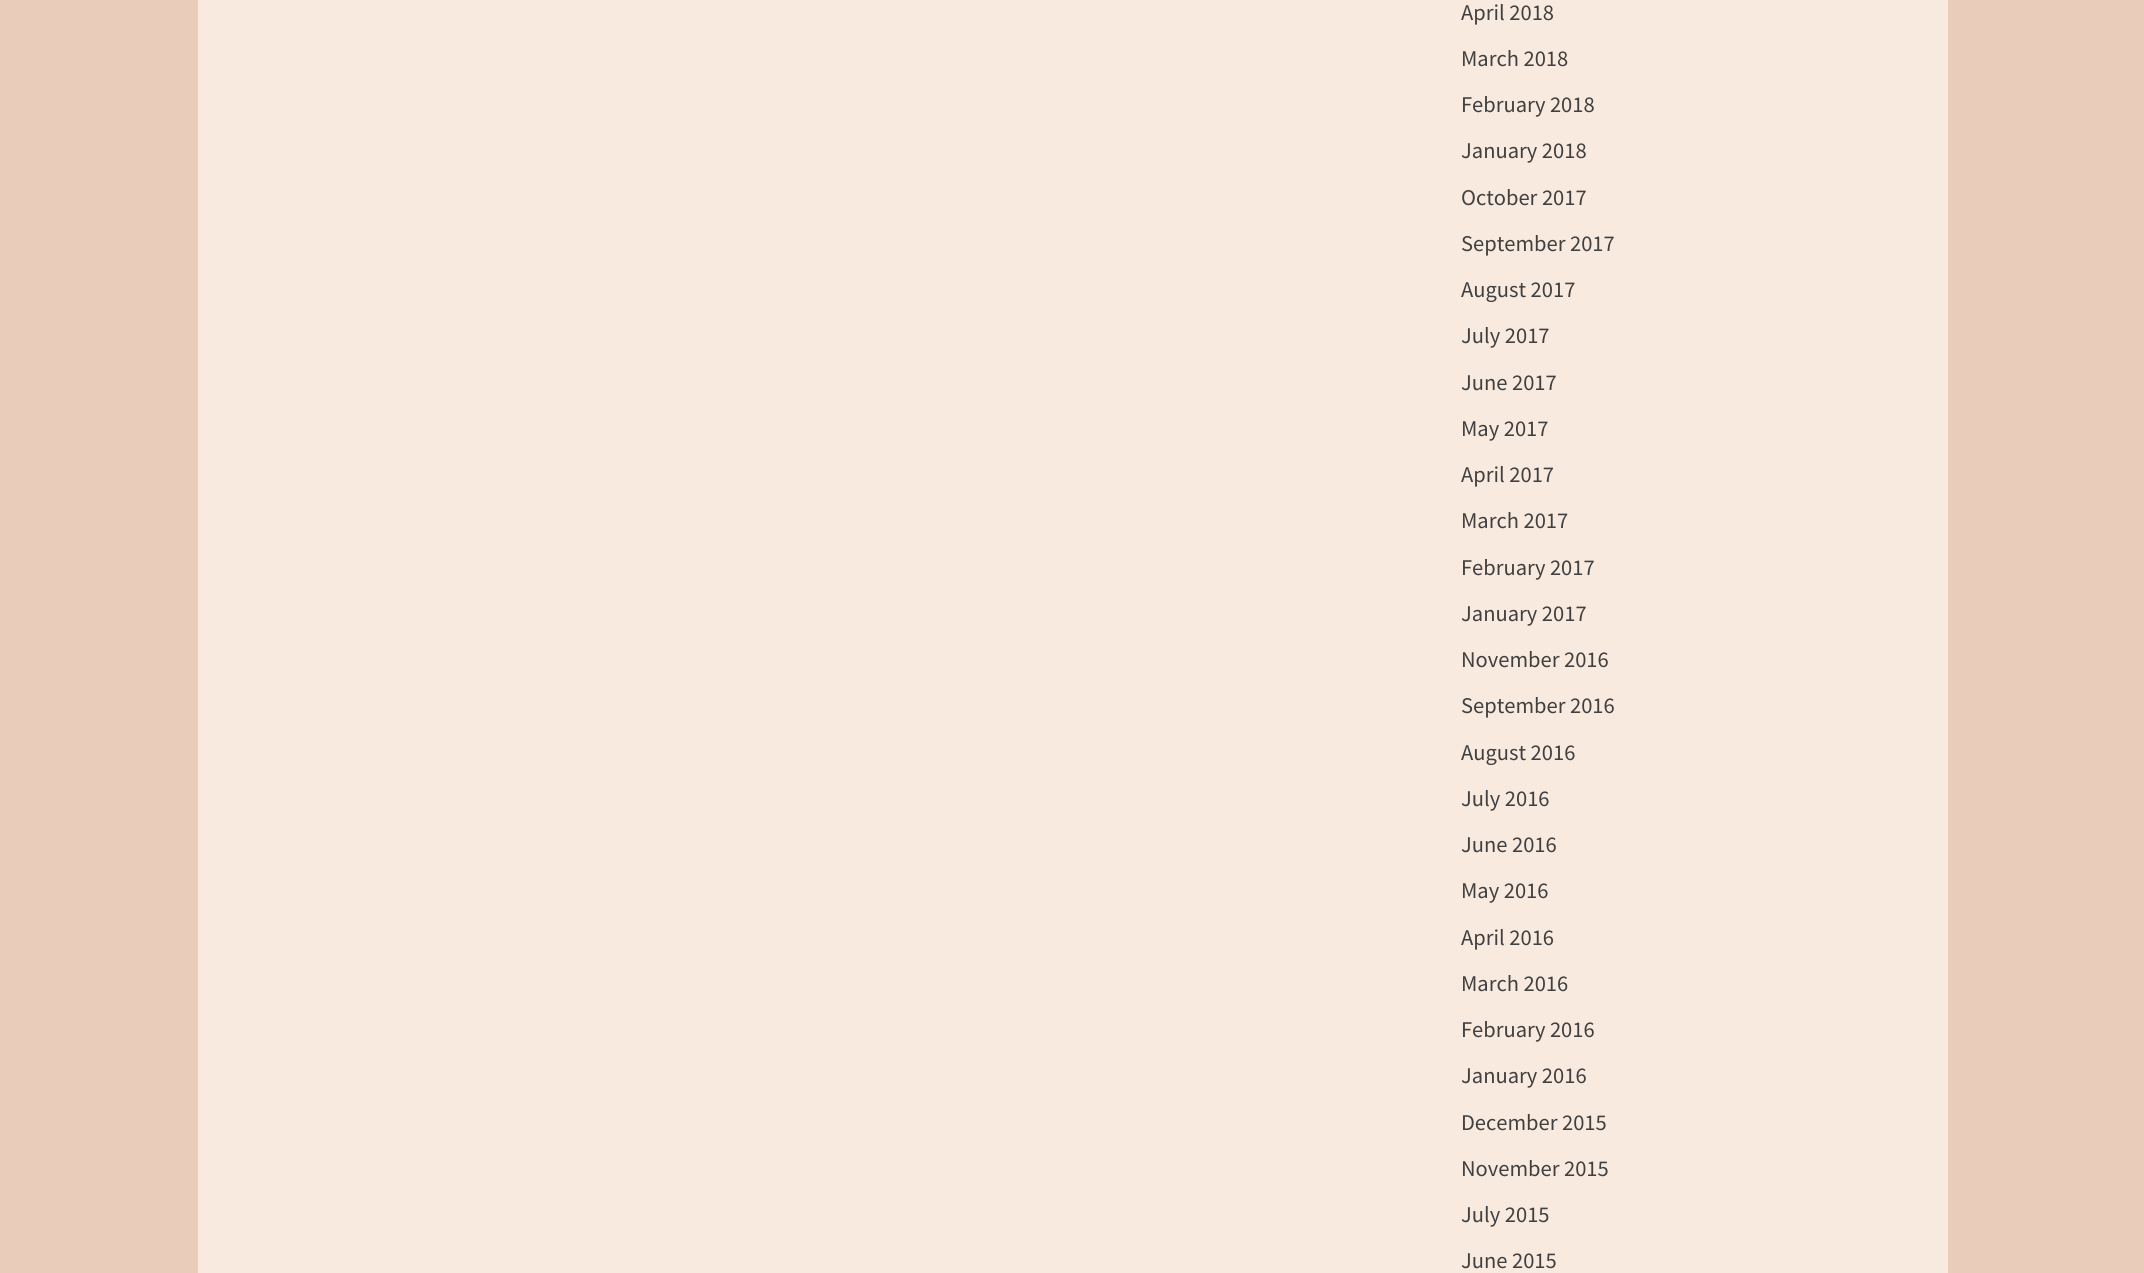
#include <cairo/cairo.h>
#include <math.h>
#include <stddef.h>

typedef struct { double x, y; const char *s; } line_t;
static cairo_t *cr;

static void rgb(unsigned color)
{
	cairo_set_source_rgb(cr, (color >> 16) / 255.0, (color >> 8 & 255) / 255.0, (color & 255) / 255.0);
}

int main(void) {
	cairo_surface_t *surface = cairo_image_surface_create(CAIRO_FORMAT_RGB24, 2144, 1273);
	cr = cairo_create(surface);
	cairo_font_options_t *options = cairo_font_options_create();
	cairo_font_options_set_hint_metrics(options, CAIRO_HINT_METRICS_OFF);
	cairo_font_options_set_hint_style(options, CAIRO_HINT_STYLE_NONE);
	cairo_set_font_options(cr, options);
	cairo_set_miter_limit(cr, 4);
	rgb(0xeaccbb);
	cairo_paint(cr);
	rgb(0xf9eae0);
	cairo_rectangle(cr, 198, 0, 1750, 1273);
	cairo_fill(cr);
	cairo_select_font_face(cr, "Source Sans Pro", CAIRO_FONT_SLANT_NORMAL, CAIRO_FONT_WEIGHT_NORMAL);
	cairo_set_font_size(cr, 22.5);
	rgb(0x404040);
	{
		static const line_t items[] = {
			{1461, 20, "April 2018"},
			{1461, 66, "March 2018"},
			{1461, 112, "February 2018"},
			{1461, 158, "January 2018"},
			{1461, 205, "October 2017"},
			{1461, 251, "September 2017"},
			{1461, 297, "August 2017"},
			{1461, 343, "July 2017"},
			{1461, 390, "June 2017"},
			{1461, 436, "May 2017"},
			{1461, 482, "April 2017"},
			{1461, 528, "March 2017"},
			{1461, 575, "February 2017"},
			{1461, 621, "January 2017"},
			{1461, 667, "November 2016"},
			{1461, 713, "September 2016"},
			{1461, 760, "August 2016"},
			{1461, 806, "July 2016"},
			{1461, 852, "June 2016"},
			{1461, 898, "May 2016"},
			{1461, 945, "April 2016"},
			{1461, 991, "March 2016"},
			{1461, 1037, "February 2016"},
			{1461, 1083, "January 2016"},
			{1461, 1130, "December 2015"},
			{1461, 1176, "November 2015"},
			{1461, 1222, "July 2015"},
			{1461, 1268, "June 2015"},
		};
		for (size_t i = 0; i < sizeof items / sizeof *items; i++) {
			cairo_move_to(cr, items[i].x, items[i].y);
			cairo_show_text(cr, items[i].s);
		}
	}
	cairo_surface_write_to_png(surface, "page.png");
	cairo_font_options_destroy(options);
	cairo_destroy(cr);
	cairo_surface_destroy(surface);
	return 0;
}
